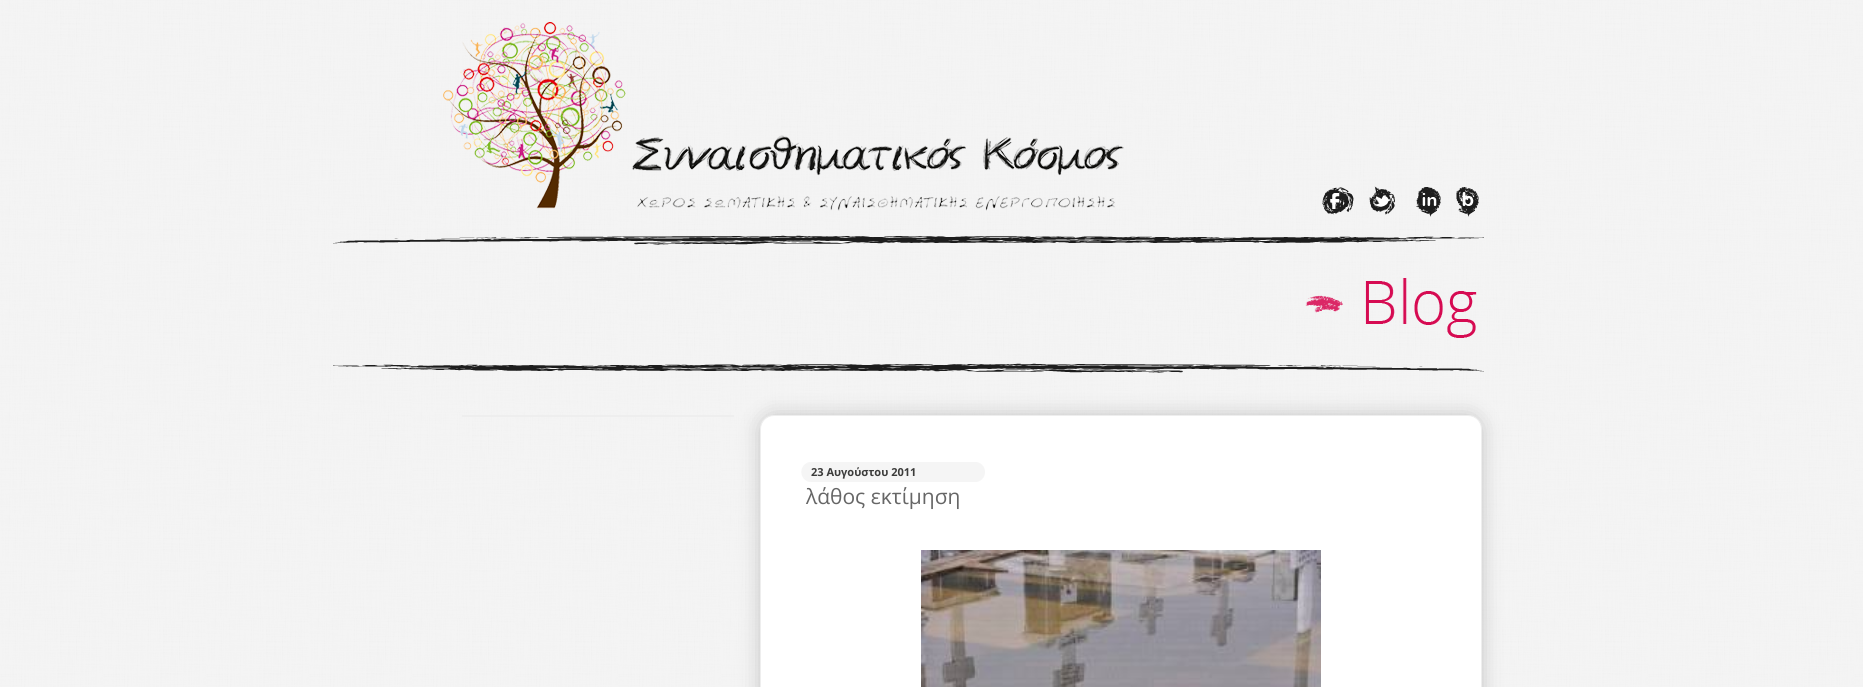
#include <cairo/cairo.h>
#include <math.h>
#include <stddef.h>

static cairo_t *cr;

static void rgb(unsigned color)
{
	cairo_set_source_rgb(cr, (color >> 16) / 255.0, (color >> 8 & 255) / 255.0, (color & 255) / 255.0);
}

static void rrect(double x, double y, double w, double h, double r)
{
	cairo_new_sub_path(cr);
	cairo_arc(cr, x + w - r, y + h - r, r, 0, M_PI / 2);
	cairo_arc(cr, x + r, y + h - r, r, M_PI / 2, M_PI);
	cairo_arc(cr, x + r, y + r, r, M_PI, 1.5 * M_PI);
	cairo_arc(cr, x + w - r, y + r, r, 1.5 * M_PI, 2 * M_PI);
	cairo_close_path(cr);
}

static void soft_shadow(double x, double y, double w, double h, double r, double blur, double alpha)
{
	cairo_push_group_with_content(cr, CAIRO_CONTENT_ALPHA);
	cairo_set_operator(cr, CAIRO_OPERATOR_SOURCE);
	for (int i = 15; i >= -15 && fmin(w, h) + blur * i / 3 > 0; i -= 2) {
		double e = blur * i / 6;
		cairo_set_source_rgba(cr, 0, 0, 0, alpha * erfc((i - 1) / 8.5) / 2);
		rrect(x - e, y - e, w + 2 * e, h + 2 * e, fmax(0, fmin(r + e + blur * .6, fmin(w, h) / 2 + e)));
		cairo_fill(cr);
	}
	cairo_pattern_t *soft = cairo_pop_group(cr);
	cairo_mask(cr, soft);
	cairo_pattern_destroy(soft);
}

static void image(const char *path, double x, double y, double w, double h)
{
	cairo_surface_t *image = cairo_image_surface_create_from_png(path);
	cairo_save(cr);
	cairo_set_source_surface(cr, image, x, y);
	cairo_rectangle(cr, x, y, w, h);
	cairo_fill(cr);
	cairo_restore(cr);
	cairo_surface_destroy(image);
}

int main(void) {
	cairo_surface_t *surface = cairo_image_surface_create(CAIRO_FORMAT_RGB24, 1863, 687);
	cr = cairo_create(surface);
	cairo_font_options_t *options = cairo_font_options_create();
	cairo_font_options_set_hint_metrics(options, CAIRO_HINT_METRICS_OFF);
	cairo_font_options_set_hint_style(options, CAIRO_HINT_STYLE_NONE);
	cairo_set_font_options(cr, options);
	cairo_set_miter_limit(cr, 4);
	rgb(0xeeeeee);
	cairo_paint(cr);
	image("img/1.png", 0, 0, 1863, 687);
	image("img/2.png", 443, 22, 681, 189);
	image("img/3.png", 333, 235, 1151, 138);
	image("img/4.png", 1322, 187, 32, 28);
	image("img/5.png", 1369, 186, 26, 29);
	image("img/6.png", 1416, 187, 25, 30);
	image("img/7.png", 1456, 187, 23, 30);
	rgb(0x000000);
	soft_shadow(760, 415, 722, 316, 14, 10, 0.2);
	rgb(0xeeeeee);
	cairo_rectangle(cr, 462, 415, 272, 2);
	cairo_fill(cr);
	rgb(0xffffff);
	rrect(760.5, 415.5, 721, 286, 13.5);
	cairo_fill_preserve(cr);
	rgb(0xeeeeee);
	cairo_set_line_width(cr, 1);
	cairo_stroke(cr);
	image("img/8.png", 801, 462, 184, 20);
	image("img/9.png", 921, 550, 400, 137);
	cairo_select_font_face(cr, "Open Sans", CAIRO_FONT_SLANT_NORMAL, CAIRO_FONT_WEIGHT_BOLD);
	cairo_set_font_size(cr, 11);
	rgb(0x3c3c3b);
	cairo_move_to(cr, 811, 476);
	cairo_show_text(cr, "23 Αυγούστου 2011");
	cairo_select_font_face(cr, "Open Sans", CAIRO_FONT_SLANT_NORMAL, CAIRO_FONT_WEIGHT_NORMAL);
	cairo_set_font_size(cr, 21);
	rgb(0x666666);
	cairo_move_to(cr, 806, 504);
	cairo_show_text(cr, "λάθος εκτίμηση");
	cairo_surface_write_to_png(surface, "page.png");
	cairo_font_options_destroy(options);
	cairo_destroy(cr);
	cairo_surface_destroy(surface);
	return 0;
}
